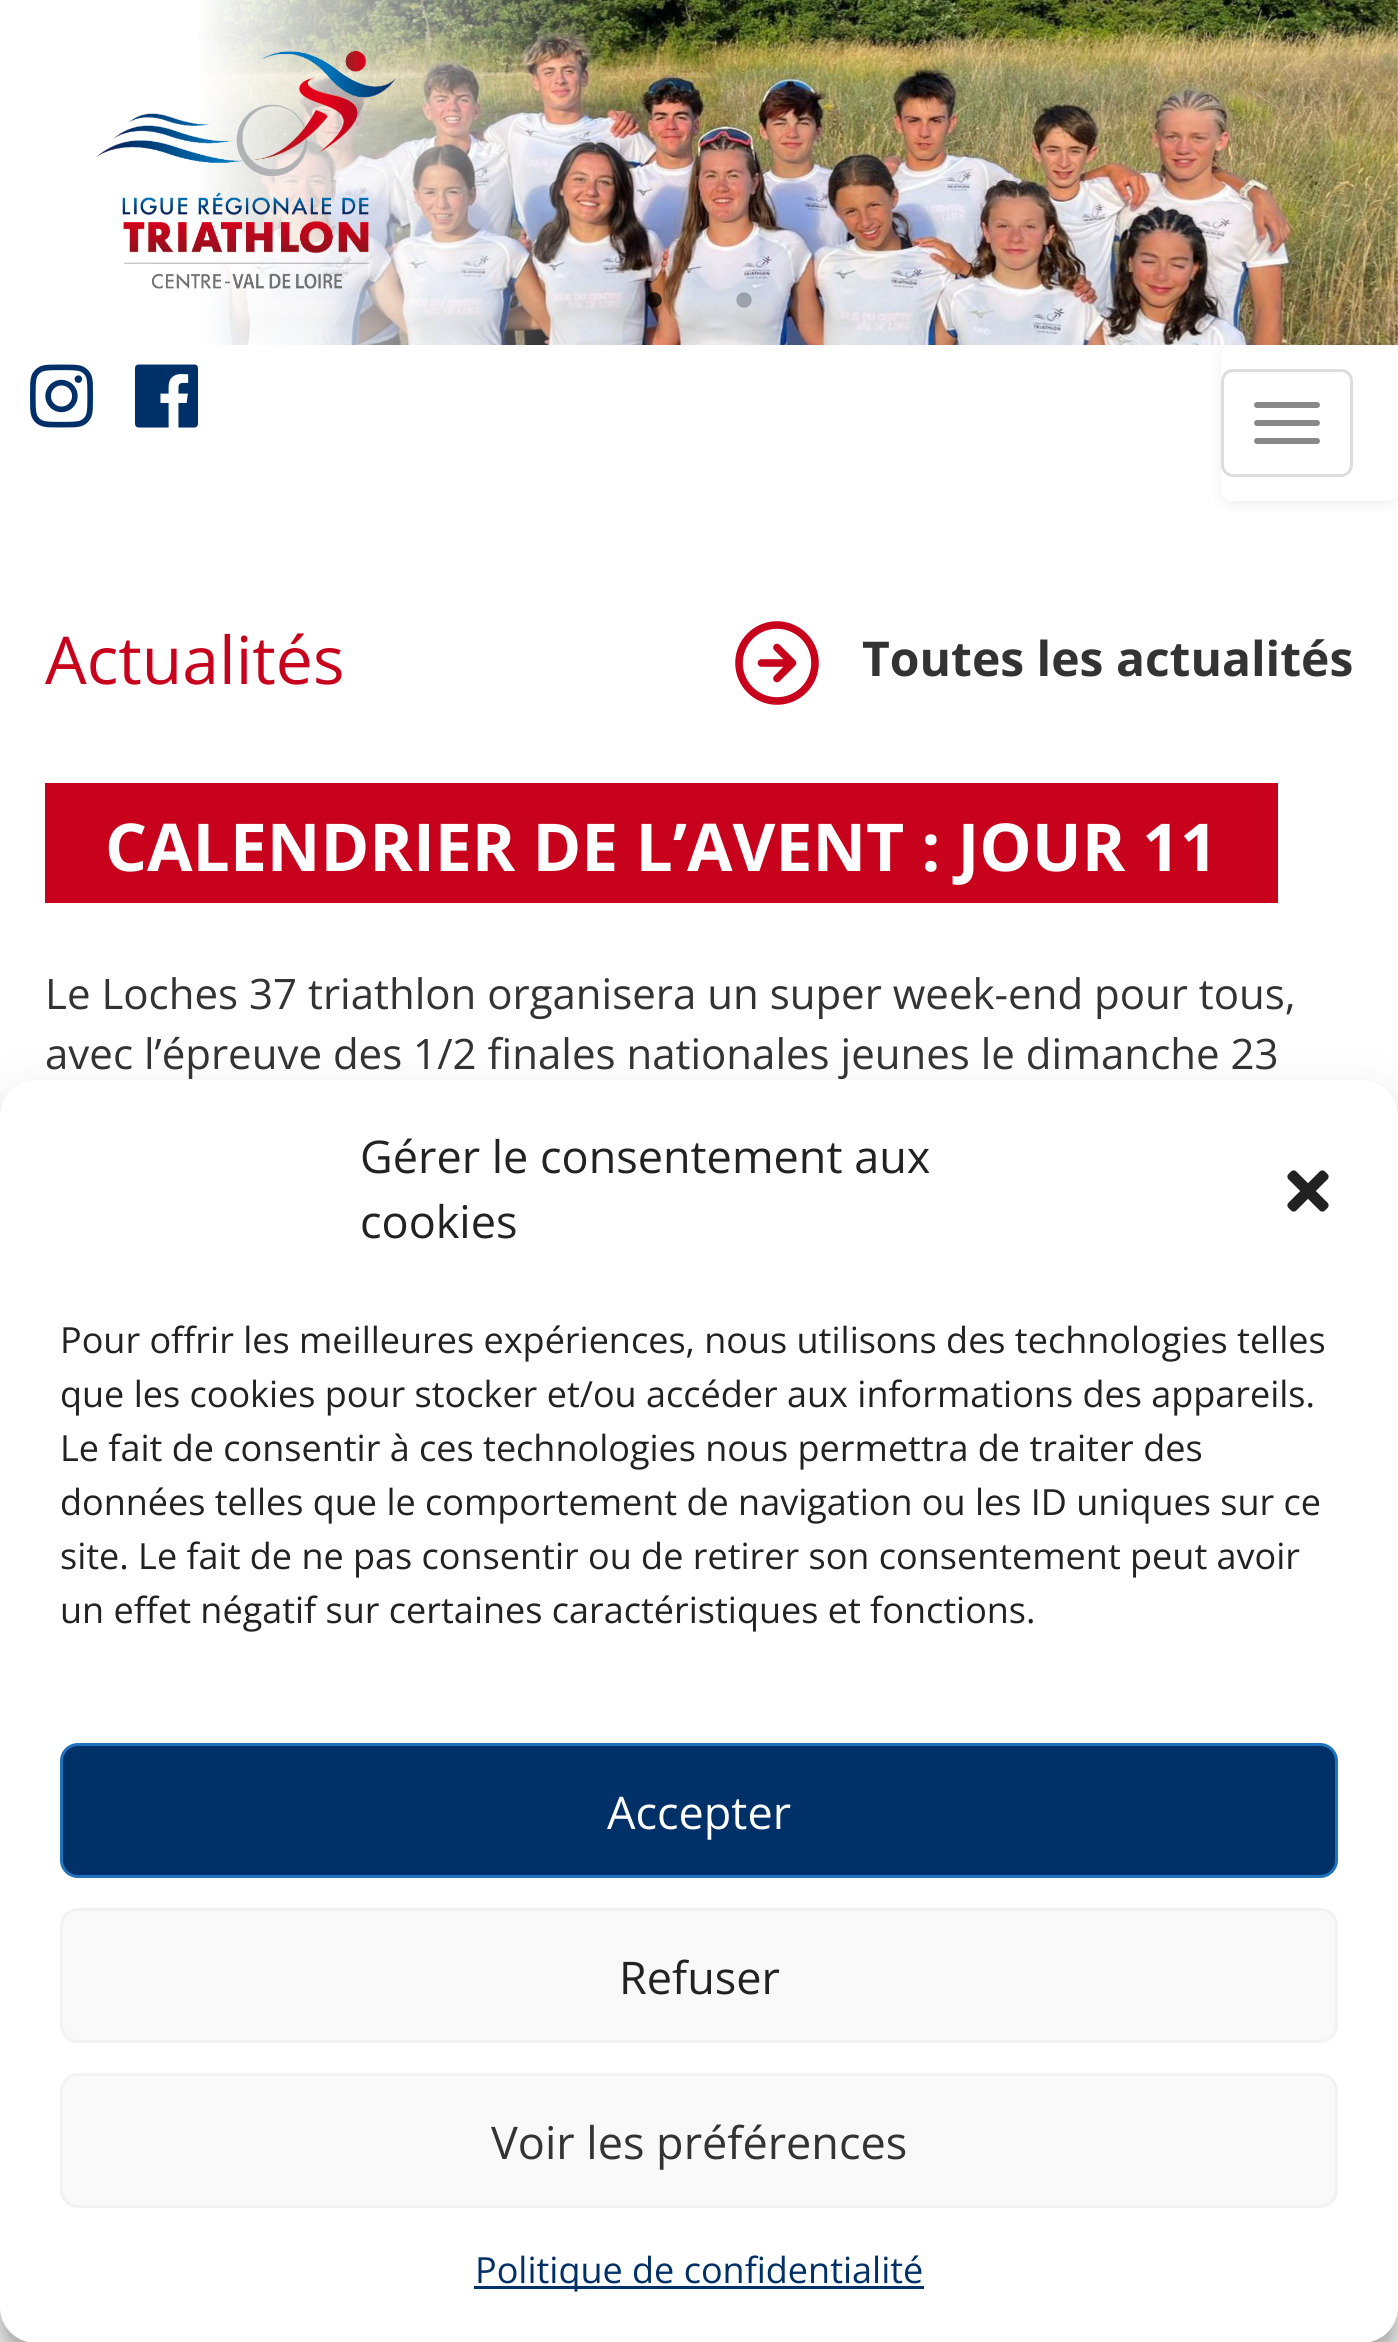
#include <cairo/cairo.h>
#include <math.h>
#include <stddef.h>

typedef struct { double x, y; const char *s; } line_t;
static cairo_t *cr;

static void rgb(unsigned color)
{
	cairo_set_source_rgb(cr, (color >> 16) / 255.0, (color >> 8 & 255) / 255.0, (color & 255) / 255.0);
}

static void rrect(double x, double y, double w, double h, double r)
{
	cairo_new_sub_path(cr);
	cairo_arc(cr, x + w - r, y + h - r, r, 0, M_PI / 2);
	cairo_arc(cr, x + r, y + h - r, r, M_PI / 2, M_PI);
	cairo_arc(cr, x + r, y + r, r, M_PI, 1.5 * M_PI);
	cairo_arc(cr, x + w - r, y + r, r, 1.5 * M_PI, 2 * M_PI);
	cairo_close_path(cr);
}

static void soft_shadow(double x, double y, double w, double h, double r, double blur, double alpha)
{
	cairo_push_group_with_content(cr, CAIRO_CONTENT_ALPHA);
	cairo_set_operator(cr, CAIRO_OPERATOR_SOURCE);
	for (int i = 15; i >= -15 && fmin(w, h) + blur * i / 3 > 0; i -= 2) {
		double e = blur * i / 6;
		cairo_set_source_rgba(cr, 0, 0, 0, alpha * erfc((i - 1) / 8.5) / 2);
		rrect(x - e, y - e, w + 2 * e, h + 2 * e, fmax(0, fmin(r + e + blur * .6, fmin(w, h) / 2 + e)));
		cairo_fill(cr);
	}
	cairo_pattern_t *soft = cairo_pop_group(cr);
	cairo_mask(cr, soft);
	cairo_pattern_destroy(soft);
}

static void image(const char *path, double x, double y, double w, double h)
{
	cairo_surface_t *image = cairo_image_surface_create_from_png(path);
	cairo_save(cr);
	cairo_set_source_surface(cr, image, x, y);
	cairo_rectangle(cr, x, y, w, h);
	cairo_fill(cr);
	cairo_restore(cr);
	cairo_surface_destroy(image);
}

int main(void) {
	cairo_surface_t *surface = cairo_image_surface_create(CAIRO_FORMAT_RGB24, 1398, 2342);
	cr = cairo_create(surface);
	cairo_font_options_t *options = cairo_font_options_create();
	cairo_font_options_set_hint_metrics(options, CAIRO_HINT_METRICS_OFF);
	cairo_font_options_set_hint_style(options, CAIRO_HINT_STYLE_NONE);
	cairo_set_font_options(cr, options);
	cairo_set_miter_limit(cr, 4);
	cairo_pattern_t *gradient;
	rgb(0xffffff);
	cairo_paint(cr);
	image("img/2.png", 198, 0, 1200, 345);
	gradient = cairo_pattern_create_linear(0, 179, 1398, 178);
	cairo_pattern_add_color_stop_rgba(gradient, 0, 1, 1, 1, 1);
	cairo_pattern_add_color_stop_rgba(gradient, 0.14, 1, 1, 1, 1);
	cairo_pattern_add_color_stop_rgba(gradient, 0.45, 1, 1, 1, 0);
	cairo_set_source(cr, gradient);
	cairo_pattern_destroy(gradient);
	cairo_rectangle(cr, 198, 0, 422, 345);
	cairo_fill(cr);
	image("img/1.png", 96, 51, 300, 238);
	image("img/3.png", 646, 292, 16, 16);
	image("img/4.png", 736, 292, 16, 16);
	image("img/5.png", 30, 364, 63, 64);
	image("img/6.png", 135, 364, 63, 64);
	cairo_save(cr);
	cairo_set_fill_rule(cr, CAIRO_FILL_RULE_EVEN_ODD);
	cairo_new_path(cr);
	cairo_move_to(cr, 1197, 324);
	cairo_line_to(cr, 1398, 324);
	cairo_line_to(cr, 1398, 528);
	cairo_line_to(cr, 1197, 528);
	cairo_close_path(cr);
	cairo_move_to(cr, 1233, 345);
	cairo_line_to(cr, 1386, 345);
	cairo_curve_to(cr, 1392.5, 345, 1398, 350.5, 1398, 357);
	cairo_line_to(cr, 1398, 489);
	cairo_curve_to(cr, 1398, 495.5, 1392.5, 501, 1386, 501);
	cairo_line_to(cr, 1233, 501);
	cairo_curve_to(cr, 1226.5, 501, 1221, 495.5, 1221, 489);
	cairo_line_to(cr, 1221, 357);
	cairo_curve_to(cr, 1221, 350.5, 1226.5, 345, 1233, 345);
	cairo_close_path(cr);
	cairo_clip(cr);
	rgb(0x000000);
	soft_shadow(1221, 348, 177, 156, 12, 7.5, 0.07);
	cairo_restore(cr);
	rrect(1222.5, 370.5, 129, 105, 10.5);
	rgb(0xdddddd);
	cairo_set_line_width(cr, 3);
	cairo_stroke(cr);
	rgb(0x888888);
	rrect(1254, 402, 66, 6, 3);
	cairo_fill(cr);
	rrect(1254, 420, 66, 6, 3);
	cairo_fill(cr);
	rrect(1254, 438, 66, 6, 3);
	cairo_fill(cr);
	cairo_new_path(cr);
	cairo_move_to(cr, 815, 663);
	cairo_curve_to(cr, 815, 684, 798, 701, 777, 701);
	cairo_curve_to(cr, 756, 701, 739, 684, 739, 663);
	cairo_curve_to(cr, 739, 642, 756, 625, 777, 625);
	cairo_curve_to(cr, 798, 625, 815, 642, 815, 663);
	cairo_close_path(cr);
	rgb(0xc8021c);
	cairo_set_line_width(cr, 7.6);
	cairo_set_line_cap(cr, CAIRO_LINE_CAP_ROUND);
	cairo_set_line_join(cr, CAIRO_LINE_JOIN_ROUND);
	cairo_stroke(cr);
	cairo_new_path(cr);
	cairo_move_to(cr, 777, 678.5);
	cairo_line_to(cr, 792.5, 663);
	cairo_line_to(cr, 777, 647.5);
	cairo_move_to(cr, 761.5, 663);
	cairo_line_to(cr, 792.5, 663);
	cairo_stroke(cr);
	cairo_rectangle(cr, 45, 783, 1233, 120);
	cairo_fill(cr);
	rgb(0x000000);
	soft_shadow(0, 1098, 1398, 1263, 36, 9, 0.23);
	soft_shadow(0, 1110, 1398, 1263, 36, 30, 0.19);
	rgb(0xffffff);
	rrect(0, 1080, 1398, 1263, 36);
	cairo_fill(cr);
	image("img/7.png", 1287, 1170, 42, 42);
	rgb(0x003068);
	rrect(61.5, 1744.5, 1275, 132, 16.5);
	cairo_fill_preserve(cr);
	rgb(0x1e73be);
	cairo_set_line_width(cr, 3);
	cairo_set_line_cap(cr, CAIRO_LINE_CAP_BUTT);
	cairo_set_line_join(cr, CAIRO_LINE_JOIN_MITER);
	cairo_stroke(cr);
	rgb(0xf9f9f9);
	rrect(61.5, 1909.5, 1275, 132, 16.5);
	cairo_fill_preserve(cr);
	rgb(0xf2f2f2);
	cairo_stroke(cr);
	rgb(0xf9f9f9);
	rrect(61.5, 2074.5, 1275, 132, 16.5);
	cairo_fill_preserve(cr);
	rgb(0xf2f2f2);
	cairo_stroke(cr);
	rgb(0x003068);
	cairo_rectangle(cr, 474, 2286, 450, 3);
	cairo_fill(cr);
	cairo_select_font_face(cr, "Open Sans", CAIRO_FONT_SLANT_NORMAL, CAIRO_FONT_WEIGHT_NORMAL);
	cairo_set_font_size(cr, 66);
	rgb(0xc8021c);
	cairo_move_to(cr, 45, 684);
	cairo_show_text(cr, "Actualités");
	cairo_select_font_face(cr, "Open Sans", CAIRO_FONT_SLANT_NORMAL, CAIRO_FONT_WEIGHT_BOLD);
	cairo_set_font_size(cr, 48);
	rgb(0x333333);
	cairo_move_to(cr, 862, 676);
	cairo_show_text(cr, "Toutes les actualités");
	cairo_set_font_size(cr, 66);
	rgb(0xffffff);
	cairo_move_to(cr, 105, 871);
	cairo_show_text(cr, "CALENDRIER DE L’AVENT : JOUR 11");
	cairo_select_font_face(cr, "Open Sans", CAIRO_FONT_SLANT_NORMAL, CAIRO_FONT_WEIGHT_NORMAL);
	cairo_set_font_size(cr, 42);
	rgb(0x333333);
	cairo_move_to(cr, 45, 1009);
	cairo_show_text(cr, "Le Loches 37 triathlon organisera un super week-end pour tous,");
	cairo_move_to(cr, 45, 1069);
	cairo_show_text(cr, "avec l’épreuve des 1/2 finales nationales jeunes le dimanche 23");
	cairo_set_font_size(cr, 45);
	rgb(0x222222);
	cairo_move_to(cr, 360, 1173);
	cairo_show_text(cr, "Gérer le consentement aux");
	cairo_move_to(cr, 360, 1238);
	cairo_show_text(cr, "cookies");
	cairo_set_font_size(cr, 36);
	{
		static const line_t items[] = {
			{60, 1353, "Pour offrir les meilleures expériences, nous utilisons des technologies telles"},
			{60, 1407, "que les cookies pour stocker et/ou accéder aux informations des appareils."},
			{60, 1461, "Le fait de consentir à ces technologies nous permettra de traiter des"},
			{60, 1515, "données telles que le comportement de navigation ou les ID uniques sur ce"},
			{60, 1569, "site. Le fait de ne pas consentir ou de retirer son consentement peut avoir"},
			{60, 1623, "un effet négatif sur certaines caractéristiques et fonctions."},
		};
		for (size_t i = 0; i < sizeof items / sizeof *items; i++) {
			cairo_move_to(cr, items[i].x, items[i].y);
			cairo_show_text(cr, items[i].s);
		}
	}
	cairo_set_font_size(cr, 45);
	rgb(0xffffff);
	cairo_move_to(cr, 607, 1829);
	cairo_show_text(cr, "Accepter");
	rgb(0x222222);
	cairo_move_to(cr, 619, 1994);
	cairo_show_text(cr, "Refuser");
	rgb(0x333333);
	cairo_move_to(cr, 491, 2159);
	cairo_show_text(cr, "Voir les préférences");
	cairo_set_font_size(cr, 36);
	rgb(0x003068);
	cairo_move_to(cr, 475, 2283);
	cairo_show_text(cr, "Politique de confidentialité");
	cairo_surface_write_to_png(surface, "page.png");
	cairo_font_options_destroy(options);
	cairo_destroy(cr);
	cairo_surface_destroy(surface);
	return 0;
}
